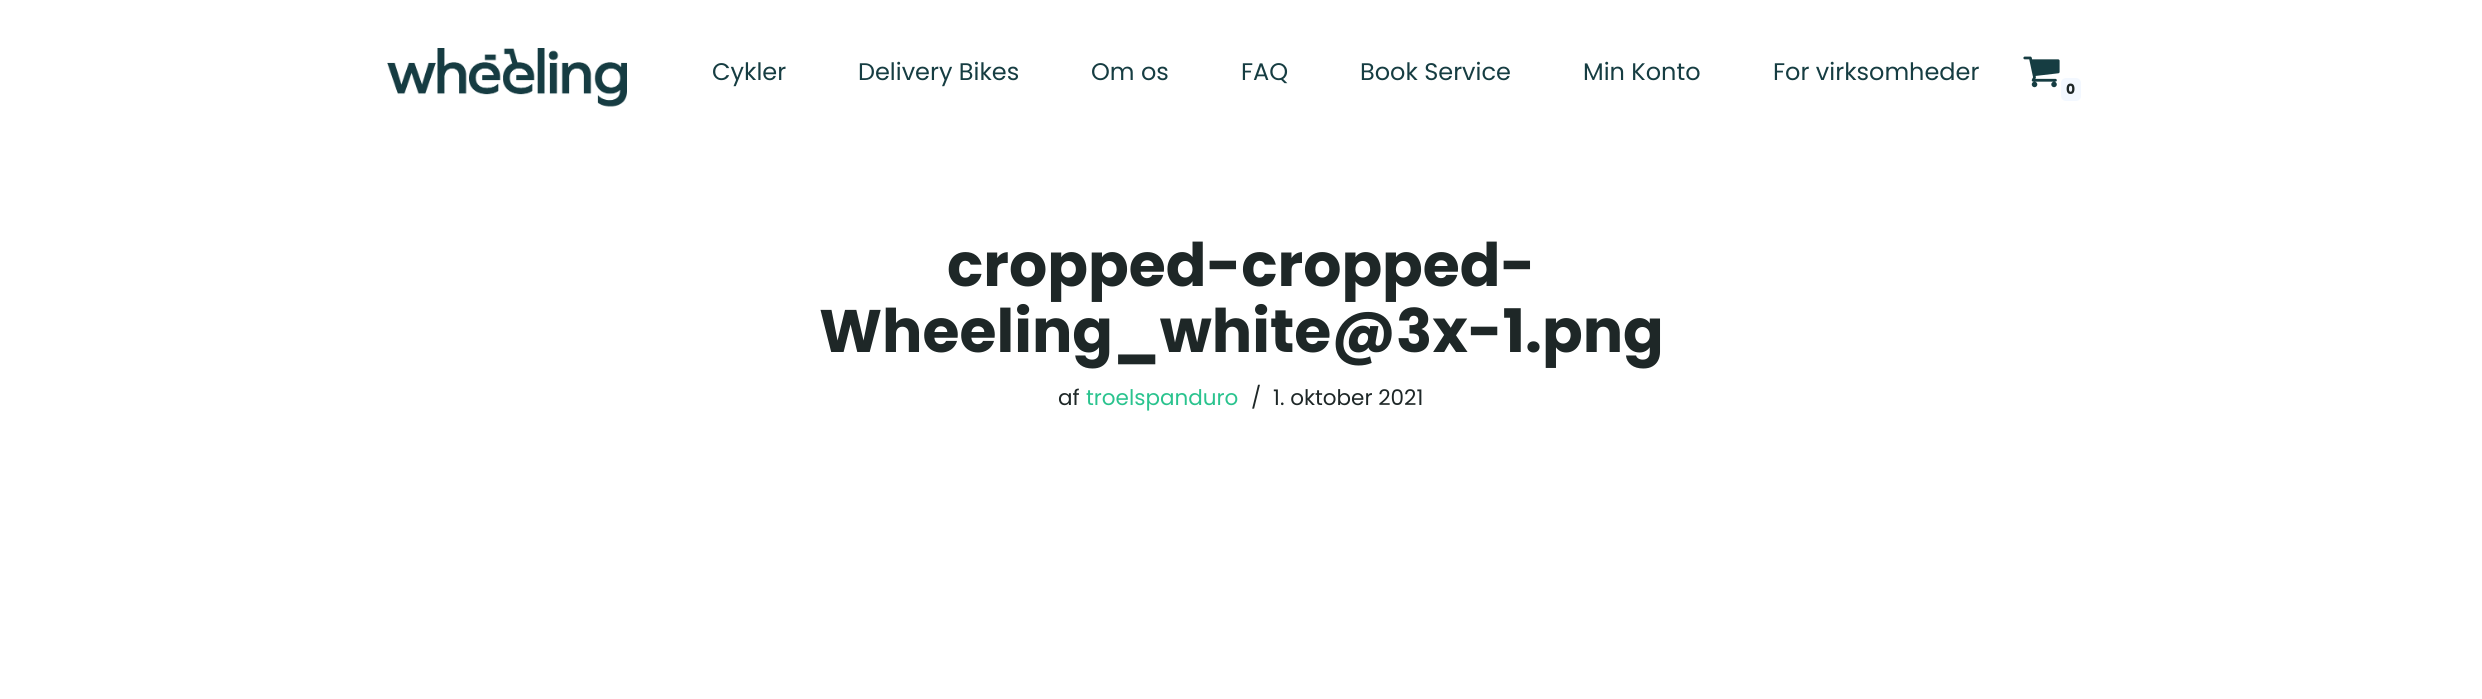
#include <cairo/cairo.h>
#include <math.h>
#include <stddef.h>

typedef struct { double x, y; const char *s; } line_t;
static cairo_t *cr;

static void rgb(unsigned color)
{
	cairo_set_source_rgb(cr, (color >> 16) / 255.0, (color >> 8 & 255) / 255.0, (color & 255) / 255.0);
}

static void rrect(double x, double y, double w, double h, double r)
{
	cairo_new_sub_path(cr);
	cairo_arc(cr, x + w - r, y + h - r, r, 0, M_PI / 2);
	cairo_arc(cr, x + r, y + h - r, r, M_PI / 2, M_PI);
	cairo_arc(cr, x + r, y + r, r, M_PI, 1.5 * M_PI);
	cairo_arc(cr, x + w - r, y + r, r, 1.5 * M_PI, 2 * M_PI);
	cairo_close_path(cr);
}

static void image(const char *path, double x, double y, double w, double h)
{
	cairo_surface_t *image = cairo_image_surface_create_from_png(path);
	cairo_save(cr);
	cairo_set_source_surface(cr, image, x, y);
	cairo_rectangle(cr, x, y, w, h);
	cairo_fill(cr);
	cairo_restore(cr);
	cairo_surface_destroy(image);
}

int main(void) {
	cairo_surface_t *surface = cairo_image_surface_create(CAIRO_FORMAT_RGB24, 2482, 699);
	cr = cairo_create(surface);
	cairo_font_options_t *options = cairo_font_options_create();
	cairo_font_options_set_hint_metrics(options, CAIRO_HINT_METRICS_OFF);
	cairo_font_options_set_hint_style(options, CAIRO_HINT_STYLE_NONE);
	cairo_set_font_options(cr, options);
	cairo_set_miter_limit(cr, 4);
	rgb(0xffffff);
	cairo_paint(cr);
	image("img/1.png", 387, 48, 240, 59);
	image("img/2.png", 2023, 56, 37, 32);
	rgb(0xf3f8ff);
	rrect(2061, 78, 20, 23, 5);
	cairo_fill(cr);
	cairo_select_font_face(cr, "Poppins", CAIRO_FONT_SLANT_NORMAL, CAIRO_FONT_WEIGHT_NORMAL);
	cairo_set_font_size(cr, 24);
	rgb(0x163d42);
	{
		static const line_t items[] = {
			{712, 80, "Cykler"},
			{858, 80, "Delivery Bikes"},
			{1091, 80, "Om os"},
			{1241, 80, "FAQ"},
			{1360, 80, "Book Service"},
			{1583, 80, "Min Konto"},
			{1773, 80, "For virksomheder"},
		};
		for (size_t i = 0; i < sizeof items / sizeof *items; i++) {
			cairo_move_to(cr, items[i].x, items[i].y);
			cairo_show_text(cr, items[i].s);
		}
	}
	cairo_select_font_face(cr, "Poppins", CAIRO_FONT_SLANT_NORMAL, CAIRO_FONT_WEIGHT_BOLD);
	cairo_set_font_size(cr, 14);
	rgb(0x1e2727);
	cairo_move_to(cr, 2066, 94);
	cairo_show_text(cr, "0");
	cairo_set_font_size(cr, 60);
	cairo_move_to(cr, 947, 286);
	cairo_show_text(cr, "cropped-cropped-");
	cairo_move_to(cr, 819, 352);
	cairo_show_text(cr, "Wheeling_white@3x-1.png");
	cairo_select_font_face(cr, "Poppins", CAIRO_FONT_SLANT_NORMAL, CAIRO_FONT_WEIGHT_NORMAL);
	cairo_set_font_size(cr, 21.5);
	cairo_move_to(cr, 1058, 405);
	cairo_show_text(cr, "af");
	rgb(0x2ac38e);
	cairo_move_to(cr, 1086, 405);
	cairo_show_text(cr, "troelspanduro");
	rgb(0x1e2727);
	cairo_move_to(cr, 1251, 405);
	cairo_show_text(cr, "/");
	cairo_move_to(cr, 1273, 405);
	cairo_show_text(cr, "1. oktober 2021");
	cairo_surface_write_to_png(surface, "page.png");
	cairo_font_options_destroy(options);
	cairo_destroy(cr);
	cairo_surface_destroy(surface);
	return 0;
}
